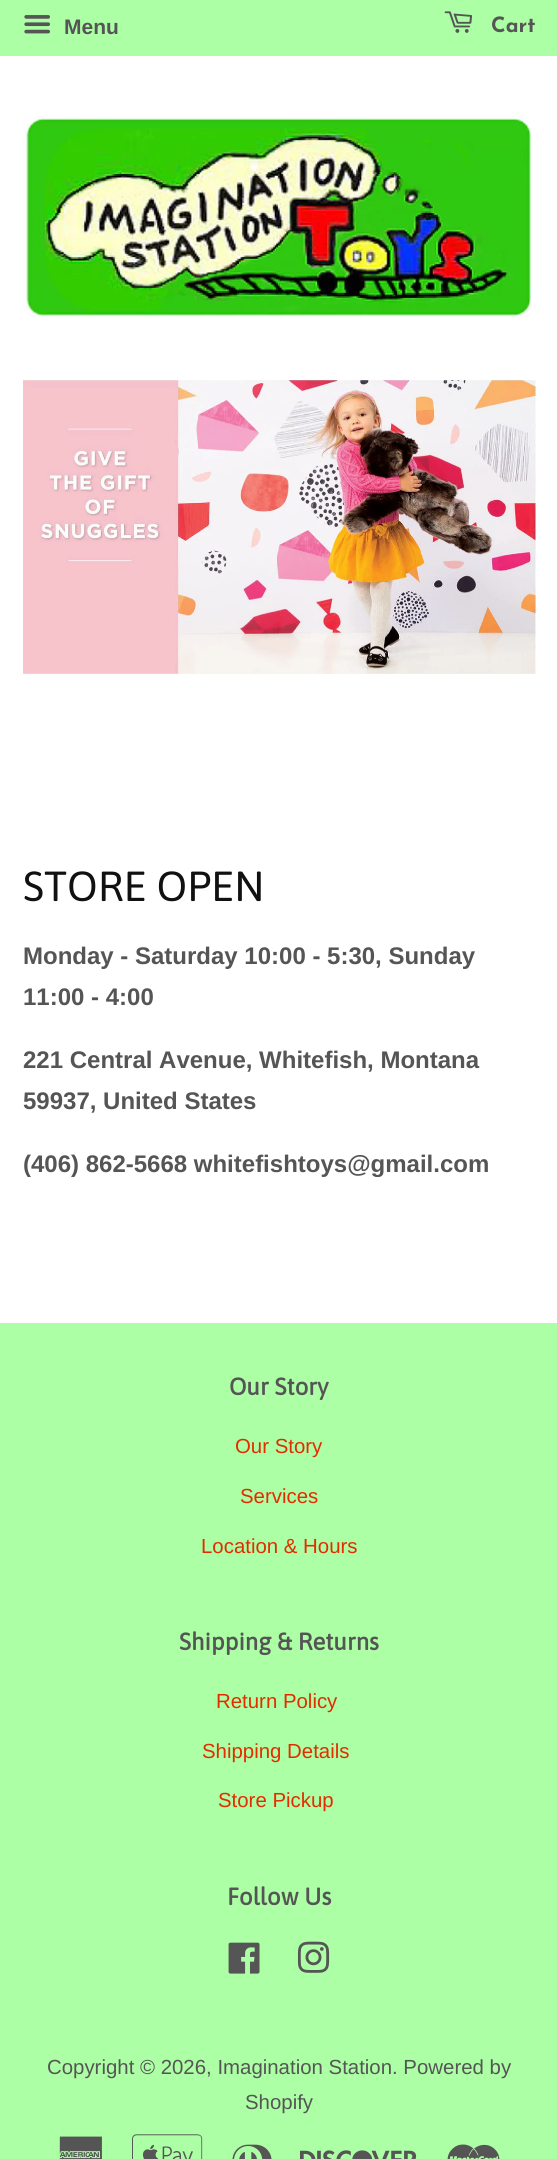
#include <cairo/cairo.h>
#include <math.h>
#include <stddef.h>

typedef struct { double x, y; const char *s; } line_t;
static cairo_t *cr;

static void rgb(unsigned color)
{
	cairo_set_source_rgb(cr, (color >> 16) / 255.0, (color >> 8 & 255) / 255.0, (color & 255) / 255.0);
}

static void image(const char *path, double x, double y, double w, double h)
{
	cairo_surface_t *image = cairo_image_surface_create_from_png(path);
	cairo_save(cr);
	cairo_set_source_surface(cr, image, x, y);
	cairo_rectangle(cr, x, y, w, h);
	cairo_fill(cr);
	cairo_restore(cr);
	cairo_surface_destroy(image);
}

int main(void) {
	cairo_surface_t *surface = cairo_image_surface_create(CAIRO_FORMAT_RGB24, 557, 2159);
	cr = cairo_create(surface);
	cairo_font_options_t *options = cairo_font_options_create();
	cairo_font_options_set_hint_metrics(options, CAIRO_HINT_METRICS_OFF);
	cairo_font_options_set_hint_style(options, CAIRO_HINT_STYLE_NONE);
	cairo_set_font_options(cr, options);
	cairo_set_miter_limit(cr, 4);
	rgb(0xffffff);
	cairo_paint(cr);
	rgb(0xacffa4);
	cairo_rectangle(cr, 0, 0, 557, 56);
	cairo_fill(cr);
	image("img/1.png", 24, 15, 26, 19);
	image("img/2.png", 444, 11, 29, 22);
	image("img/3.png", 22, 116, 510, 202);
	image("img/4.png", 23, 380, 513, 294);
	cairo_rectangle(cr, 0, 1323, 557, 836);
	cairo_fill(cr);
	image("img/5.png", 228, 1942, 32, 32);
	image("img/6.png", 297, 1941, 33, 32);
	image("img/7.png", 59, 2136, 43, 23);
	image("img/8.png", 132, 2134, 71, 25);
	image("img/9.png", 232, 2144, 40, 15);
	image("img/10.png", 300, 2150, 117, 9);
	image("img/11.png", 447, 2144, 53, 15);
	cairo_select_font_face(cr, "Liberation Sans", CAIRO_FONT_SLANT_NORMAL, CAIRO_FONT_WEIGHT_BOLD);
	cairo_set_font_size(cr, 21);
	rgb(0x555555);
	cairo_move_to(cr, 64, 34);
	cairo_show_text(cr, "Menu");
	cairo_select_font_face(cr, "Josefin Sans Thin", CAIRO_FONT_SLANT_NORMAL, CAIRO_FONT_WEIGHT_NORMAL);
	cairo_move_to(cr, 491, 32);
	cairo_show_text(cr, "Cart");
	cairo_select_font_face(cr, "Asap", CAIRO_FONT_SLANT_NORMAL, CAIRO_FONT_WEIGHT_NORMAL);
	cairo_set_font_size(cr, 42);
	rgb(0x111111);
	cairo_move_to(cr, 23, 901);
	cairo_show_text(cr, "STORE OPEN");
	cairo_select_font_face(cr, "Liberation Sans", CAIRO_FONT_SLANT_NORMAL, CAIRO_FONT_WEIGHT_BOLD);
	cairo_set_font_size(cr, 24);
	rgb(0x555555);
	{
		static const line_t items[] = {
			{23, 964, "Monday - Saturday 10:00 - 5:30, Sunday"},
			{23, 1005, "11:00 - 4:00"},
			{23, 1068, "221 Central Avenue, Whitefish, Montana"},
			{23, 1109, "59937, United States"},
			{23, 1172, "(406) 862-5668 whitefishtoys@gmail.com"},
		};
		for (size_t i = 0; i < sizeof items / sizeof *items; i++) {
			cairo_move_to(cr, items[i].x, items[i].y);
			cairo_show_text(cr, items[i].s);
		}
	}
	cairo_select_font_face(cr, "Asap", CAIRO_FONT_SLANT_NORMAL, CAIRO_FONT_WEIGHT_BOLD);
	cairo_move_to(cr, 229, 1395);
	cairo_show_text(cr, "Our Story");
	cairo_select_font_face(cr, "Liberation Sans", CAIRO_FONT_SLANT_NORMAL, CAIRO_FONT_WEIGHT_NORMAL);
	cairo_set_font_size(cr, 20.4);
	rgb(0xe42c00);
	{
		static const line_t items[] = {
			{235, 1453, "Our Story"},
			{240, 1503, "Services"},
			{201, 1553, "Location & Hours"},
		};
		for (size_t i = 0; i < sizeof items / sizeof *items; i++) {
			cairo_move_to(cr, items[i].x, items[i].y);
			cairo_show_text(cr, items[i].s);
		}
	}
	cairo_select_font_face(cr, "Asap", CAIRO_FONT_SLANT_NORMAL, CAIRO_FONT_WEIGHT_BOLD);
	cairo_set_font_size(cr, 24);
	rgb(0x555555);
	cairo_move_to(cr, 179, 1650);
	cairo_show_text(cr, "Shipping & Returns");
	cairo_select_font_face(cr, "Liberation Sans", CAIRO_FONT_SLANT_NORMAL, CAIRO_FONT_WEIGHT_NORMAL);
	cairo_set_font_size(cr, 20.4);
	rgb(0xe42c00);
	{
		static const line_t items[] = {
			{216, 1708, "Return Policy"},
			{202, 1758, "Shipping Details"},
			{218, 1807, "Store Pickup"},
		};
		for (size_t i = 0; i < sizeof items / sizeof *items; i++) {
			cairo_move_to(cr, items[i].x, items[i].y);
			cairo_show_text(cr, items[i].s);
		}
	}
	cairo_select_font_face(cr, "Asap", CAIRO_FONT_SLANT_NORMAL, CAIRO_FONT_WEIGHT_BOLD);
	cairo_set_font_size(cr, 24);
	rgb(0x555555);
	cairo_move_to(cr, 227, 1905);
	cairo_show_text(cr, "Follow Us");
	cairo_select_font_face(cr, "Liberation Sans", CAIRO_FONT_SLANT_NORMAL, CAIRO_FONT_WEIGHT_NORMAL);
	cairo_set_font_size(cr, 20.4);
	cairo_move_to(cr, 47, 2074);
	cairo_show_text(cr, "Copyright © 2026, Imagination Station. Powered by");
	cairo_move_to(cr, 245, 2109);
	cairo_show_text(cr, "Shopify");
	cairo_surface_write_to_png(surface, "page.png");
	cairo_font_options_destroy(options);
	cairo_destroy(cr);
	cairo_surface_destroy(surface);
	return 0;
}
